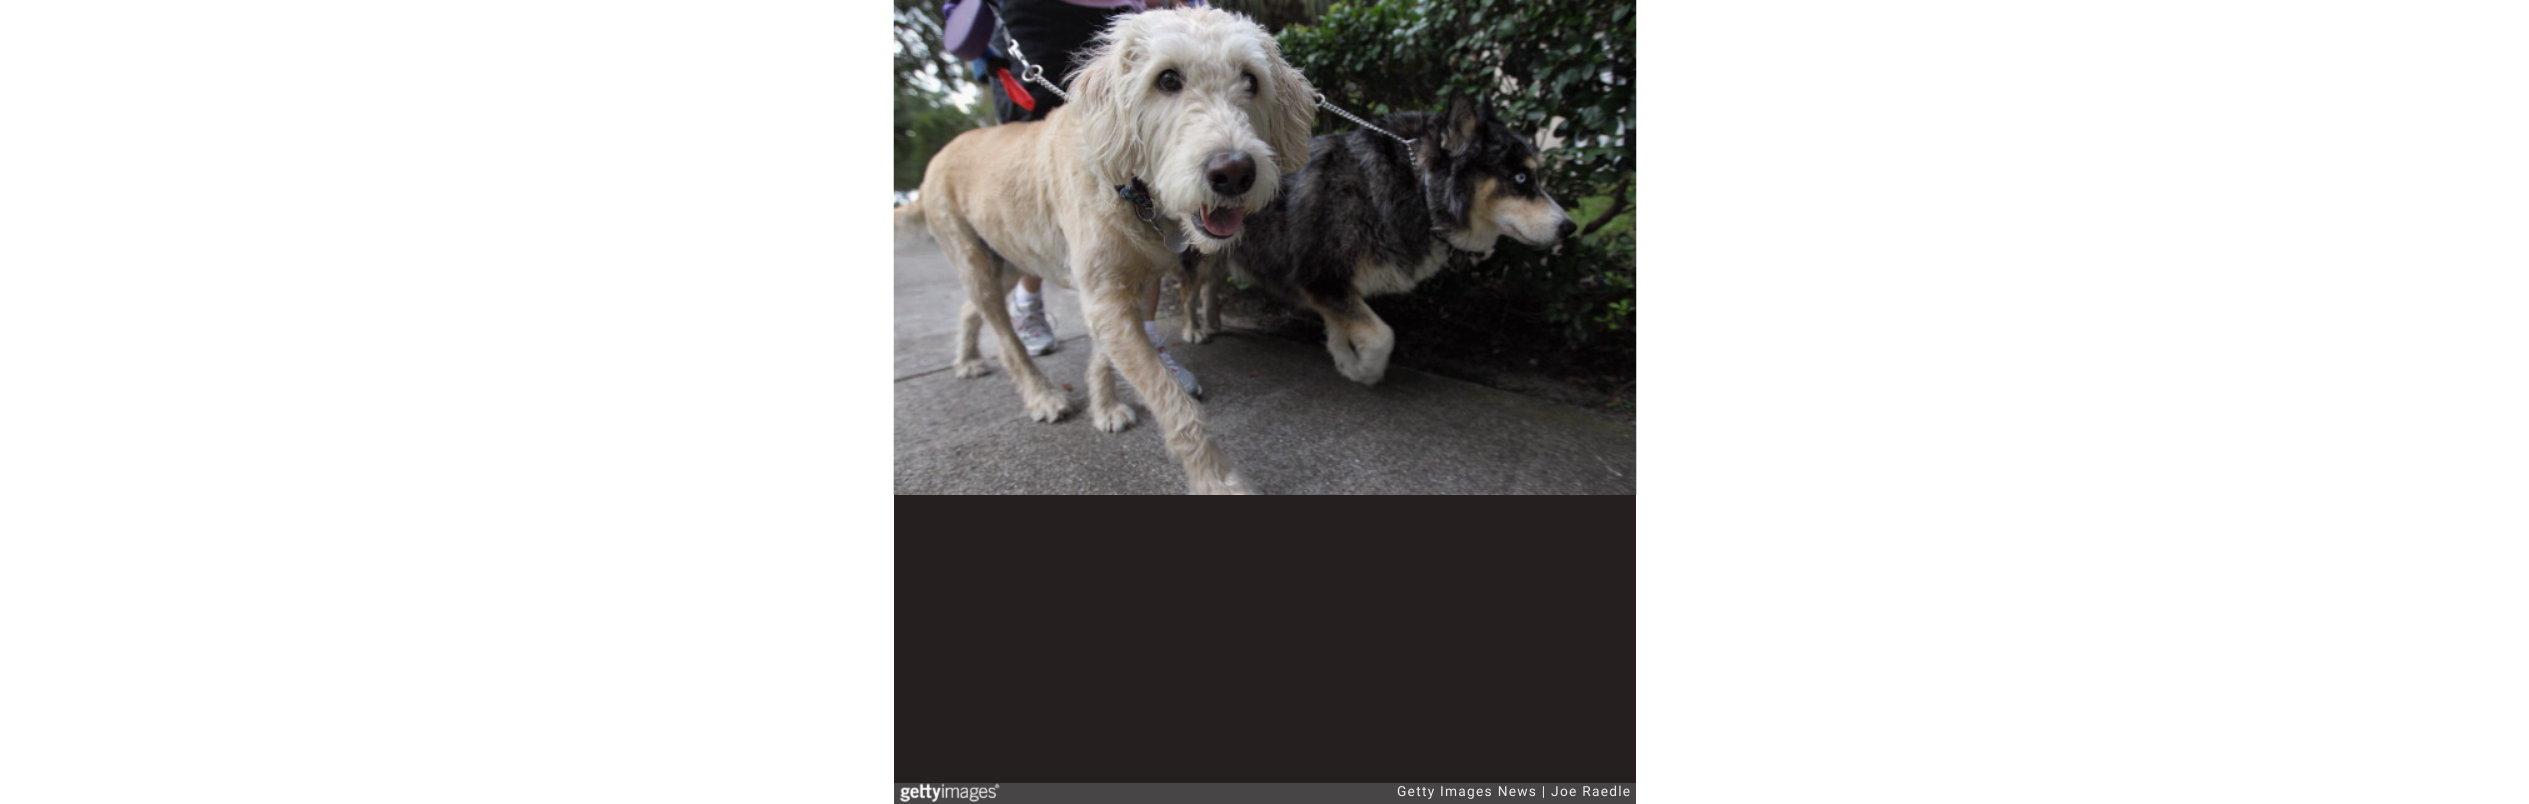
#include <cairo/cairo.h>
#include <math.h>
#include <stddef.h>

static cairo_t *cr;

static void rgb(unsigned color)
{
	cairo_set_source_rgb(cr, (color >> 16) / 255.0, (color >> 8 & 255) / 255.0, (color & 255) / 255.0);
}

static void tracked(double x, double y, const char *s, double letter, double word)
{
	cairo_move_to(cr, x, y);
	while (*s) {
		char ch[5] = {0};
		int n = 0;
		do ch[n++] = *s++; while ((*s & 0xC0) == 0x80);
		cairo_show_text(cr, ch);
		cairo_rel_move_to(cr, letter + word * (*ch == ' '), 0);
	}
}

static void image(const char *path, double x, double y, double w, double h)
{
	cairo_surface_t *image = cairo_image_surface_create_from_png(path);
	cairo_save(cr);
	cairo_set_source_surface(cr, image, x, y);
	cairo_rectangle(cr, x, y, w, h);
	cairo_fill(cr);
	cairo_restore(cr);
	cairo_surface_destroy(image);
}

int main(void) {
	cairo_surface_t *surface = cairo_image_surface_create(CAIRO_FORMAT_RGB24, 2529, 804);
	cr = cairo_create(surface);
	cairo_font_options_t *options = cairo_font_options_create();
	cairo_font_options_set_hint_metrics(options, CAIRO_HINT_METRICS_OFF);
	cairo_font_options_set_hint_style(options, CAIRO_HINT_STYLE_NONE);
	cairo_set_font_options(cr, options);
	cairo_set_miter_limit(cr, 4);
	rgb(0xffffff);
	cairo_paint(cr);
	rgb(0x251f20);
	cairo_rectangle(cr, 894, 495, 742, 288);
	cairo_fill(cr);
	image("img/1.png", 893, 0, 744, 495);
	rgb(0x474545);
	cairo_rectangle(cr, 894, 783, 742, 21);
	cairo_fill(cr);
	image("img/2.png", 899, 783, 101, 19);
	cairo_select_font_face(cr, "Roboto", CAIRO_FONT_SLANT_NORMAL, CAIRO_FONT_WEIGHT_NORMAL);
	cairo_set_font_size(cr, 13.75);
	rgb(0xeeeeee);
	tracked(1397, 796, "Getty Images News | Joe Raedle", 1.25, 0);
	cairo_surface_write_to_png(surface, "page.png");
	cairo_font_options_destroy(options);
	cairo_destroy(cr);
	cairo_surface_destroy(surface);
	return 0;
}
